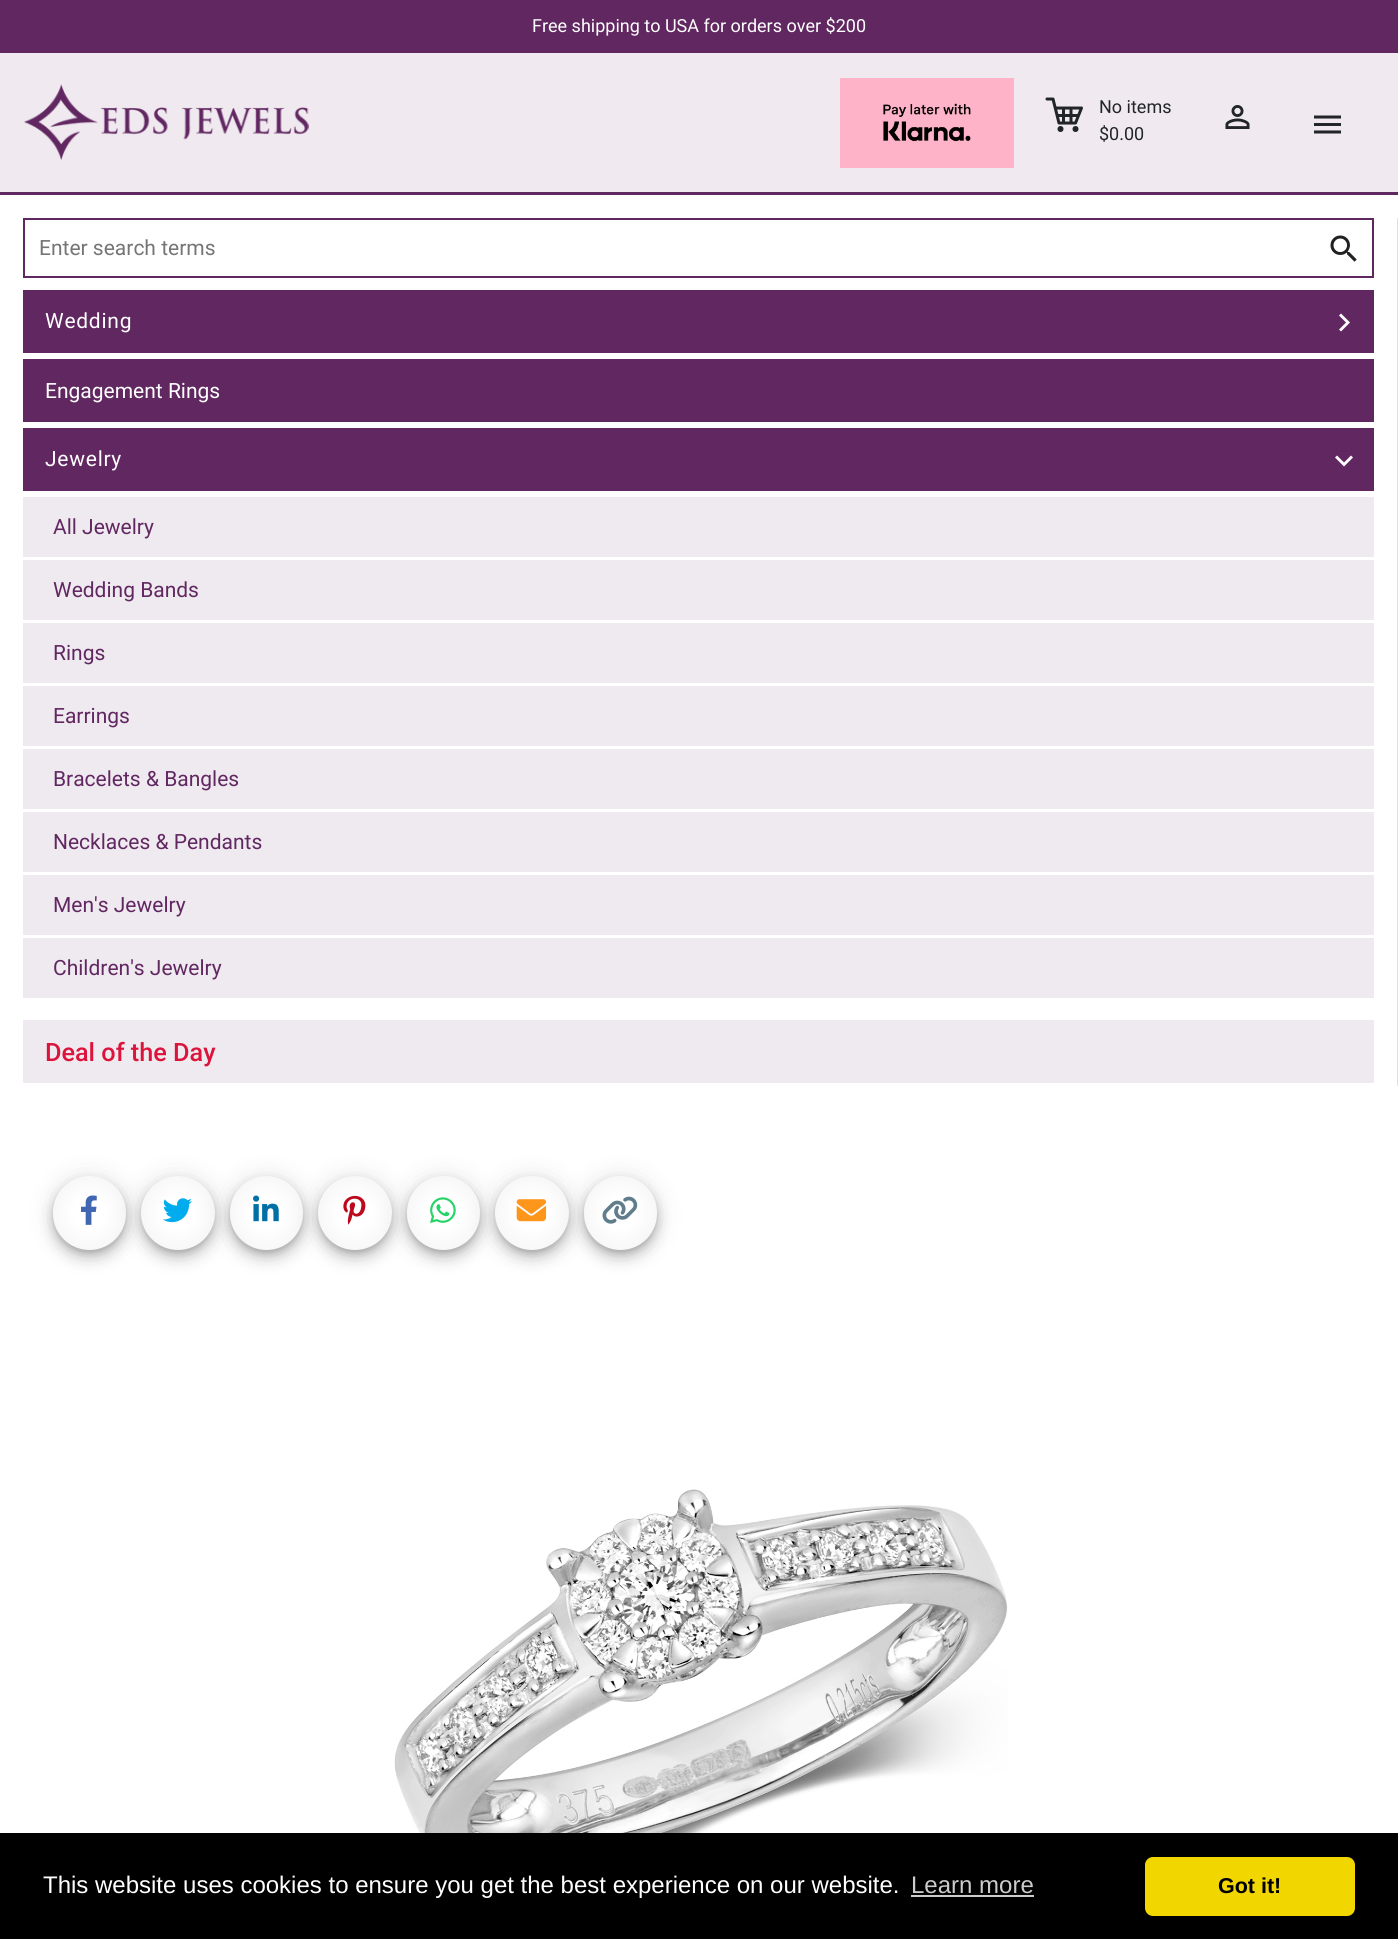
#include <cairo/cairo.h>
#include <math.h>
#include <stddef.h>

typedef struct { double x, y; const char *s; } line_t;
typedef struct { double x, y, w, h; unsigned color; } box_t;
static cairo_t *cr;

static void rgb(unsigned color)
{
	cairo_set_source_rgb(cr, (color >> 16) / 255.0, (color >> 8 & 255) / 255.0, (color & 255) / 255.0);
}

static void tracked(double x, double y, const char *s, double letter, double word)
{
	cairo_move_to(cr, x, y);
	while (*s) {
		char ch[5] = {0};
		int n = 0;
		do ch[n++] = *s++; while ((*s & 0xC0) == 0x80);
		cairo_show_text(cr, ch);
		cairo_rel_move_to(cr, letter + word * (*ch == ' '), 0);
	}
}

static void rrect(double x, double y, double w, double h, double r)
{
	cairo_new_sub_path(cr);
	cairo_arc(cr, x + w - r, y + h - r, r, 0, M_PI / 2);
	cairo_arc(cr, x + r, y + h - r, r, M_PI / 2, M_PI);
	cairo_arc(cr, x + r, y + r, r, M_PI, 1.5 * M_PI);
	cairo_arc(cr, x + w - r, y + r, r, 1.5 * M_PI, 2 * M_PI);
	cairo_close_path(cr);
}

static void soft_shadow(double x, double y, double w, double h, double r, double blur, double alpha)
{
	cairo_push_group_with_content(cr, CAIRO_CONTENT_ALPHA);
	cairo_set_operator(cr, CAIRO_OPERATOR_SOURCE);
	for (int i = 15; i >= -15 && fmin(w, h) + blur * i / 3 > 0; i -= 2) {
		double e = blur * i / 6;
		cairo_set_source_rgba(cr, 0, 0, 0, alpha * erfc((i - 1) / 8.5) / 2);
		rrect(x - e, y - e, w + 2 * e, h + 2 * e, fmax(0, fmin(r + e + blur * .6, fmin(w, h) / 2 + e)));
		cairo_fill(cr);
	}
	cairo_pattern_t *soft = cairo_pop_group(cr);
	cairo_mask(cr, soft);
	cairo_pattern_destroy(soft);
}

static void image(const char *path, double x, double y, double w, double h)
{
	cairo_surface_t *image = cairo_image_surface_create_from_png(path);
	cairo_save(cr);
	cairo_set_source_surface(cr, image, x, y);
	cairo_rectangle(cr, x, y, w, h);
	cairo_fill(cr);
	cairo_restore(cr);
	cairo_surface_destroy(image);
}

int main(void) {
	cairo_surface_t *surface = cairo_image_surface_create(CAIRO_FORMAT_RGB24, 1398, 1939);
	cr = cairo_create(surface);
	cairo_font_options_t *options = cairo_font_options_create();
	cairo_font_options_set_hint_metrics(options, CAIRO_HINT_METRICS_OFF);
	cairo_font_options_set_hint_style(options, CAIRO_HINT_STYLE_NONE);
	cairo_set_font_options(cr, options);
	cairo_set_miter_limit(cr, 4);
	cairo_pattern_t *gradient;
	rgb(0x612761);
	cairo_paint(cr);
	rgb(0xf0eaf0);
	cairo_rectangle(cr, 0, 53, 1398, 139);
	cairo_fill(cr);
	image("img/1.png", 24, 84, 285, 77);
	image("img/2.png", 840, 78, 174, 90);
	cairo_new_path(cr);
	cairo_move_to(cr, 1047, 99);
	cairo_line_to(cr, 1053, 99);
	cairo_line_to(cr, 1059, 123);
	cairo_line_to(cr, 1075.5, 123);
	cairo_line_to(cr, 1081.5, 108);
	cairo_line_to(cr, 1056, 108);
	cairo_move_to(cr, 1063.5, 108);
	cairo_line_to(cr, 1063.5, 123);
	cairo_move_to(cr, 1071, 123);
	cairo_line_to(cr, 1071, 108);
	cairo_move_to(cr, 1059, 115.5);
	cairo_line_to(cr, 1078.5, 115.5);
	rgb(0x212529);
	cairo_set_line_width(cr, 3);
	cairo_set_line_cap(cr, CAIRO_LINE_CAP_ROUND);
	cairo_set_line_join(cr, CAIRO_LINE_JOIN_ROUND);
	cairo_stroke(cr);
	cairo_arc(cr, 1060.5, 129, 3, 0, 2 * M_PI);
	cairo_fill(cr);
	cairo_arc(cr, 1075.5, 129, 3, 0, 2 * M_PI);
	cairo_fill(cr);
	image("img/3.png", 1225, 105, 25, 24);
	image("img/4.png", 1314, 115, 27, 19);
	rgb(0xffffff);
	cairo_rectangle(cr, 0, 195, 1398, 1638);
	cairo_fill(cr);
	rgb(0xe0e0e0);
	cairo_rectangle(cr, 1397, 218, 1, 868);
	cairo_fill(cr);
	cairo_rectangle(cr, 24, 219, 1349, 58);
	rgb(0x612761);
	cairo_set_line_width(cr, 2);
	cairo_set_line_cap(cr, CAIRO_LINE_CAP_BUTT);
	cairo_set_line_join(cr, CAIRO_LINE_JOIN_MITER);
	cairo_stroke(cr);
	image("img/5.png", 1330, 235, 27, 27);
	cairo_rectangle(cr, 23, 290, 1351, 63);
	cairo_fill(cr);
	rgb(0xffffff);
	cairo_new_path(cr);
	cairo_move_to(cr, 1341, 313.5);
	cairo_line_to(cr, 1350, 322.5);
	cairo_line_to(cr, 1341, 331.5);
	cairo_line_to(cr, 1339, 329.5);
	cairo_line_to(cr, 1346, 322.5);
	cairo_line_to(cr, 1339, 315.5);
	cairo_close_path(cr);
	cairo_fill(cr);
	rgb(0x612761);
	cairo_rectangle(cr, 23, 359, 1351, 63);
	cairo_fill(cr);
	cairo_rectangle(cr, 23, 428, 1351, 63);
	cairo_fill(cr);
	rgb(0xffffff);
	cairo_new_path(cr);
	cairo_move_to(cr, 1351, 455.5);
	cairo_line_to(cr, 1353, 457.5);
	cairo_line_to(cr, 1344, 466.5);
	cairo_line_to(cr, 1335, 457.5);
	cairo_line_to(cr, 1337, 455.5);
	cairo_line_to(cr, 1344, 462.5);
	cairo_close_path(cr);
	cairo_fill(cr);
	{
		static const box_t items[] = {
			{23, 497, 1351, 60, 0xefeaef},
			{23, 560, 1351, 60, 0xefeaef},
			{23, 623, 1351, 60, 0xefeaef},
			{23, 686, 1351, 60, 0xefeaef},
			{23, 749, 1351, 60, 0xefeaef},
			{23, 812, 1351, 60, 0xefeaef},
			{23, 875, 1351, 60, 0xefeaef},
			{23, 938, 1351, 60, 0xefeaef},
			{23, 1020, 1351, 63, 0xefeaef},
		};
		for (size_t i = 0; i < sizeof items / sizeof *items; i++) {
			rgb(items[i].color);
			cairo_rectangle(cr, items[i].x, items[i].y, items[i].w, items[i].h);
			cairo_fill(cr);
		}
	}
	rgb(0x000000);
	soft_shadow(53, 1178, 73, 73, 36.5, 13.5, 0.12);
	soft_shadow(53, 1185, 73, 74, 36.5, 7.5, 0.14);
	soft_shadow(54, 1182, 71, 71, 35.5, 4, 0.2);
	gradient = cairo_pattern_create_radial(89, 1213, 0, 89, 1213, 52);
	cairo_pattern_add_color_stop_rgba(gradient, 0.3, 1, 1, 1, 1);
	cairo_pattern_add_color_stop_rgba(gradient, 1, 0.949, 0.949, 0.949, 1);
	cairo_set_source(cr, gradient);
	cairo_pattern_destroy(gradient);
	rrect(53, 1176, 73, 74, 36.5);
	cairo_fill(cr);
	image("img/6.png", 81, 1195, 16, 30);
	rgb(0x000000);
	soft_shadow(141, 1178, 74, 73, 36.5, 13.5, 0.12);
	soft_shadow(141, 1185, 74, 74, 37, 7.5, 0.14);
	soft_shadow(143, 1182, 70, 71, 35, 4, 0.2);
	gradient = cairo_pattern_create_radial(178, 1213, 0, 178, 1213, 52);
	cairo_pattern_add_color_stop_rgba(gradient, 0.3, 1, 1, 1, 1);
	cairo_pattern_add_color_stop_rgba(gradient, 1, 0.949, 0.949, 0.949, 1);
	cairo_set_source(cr, gradient);
	cairo_pattern_destroy(gradient);
	cairo_arc(cr, 178, 1213, 37, 0, 2 * M_PI);
	cairo_fill(cr);
	image("img/7.png", 162, 1198, 30, 25);
	rgb(0x000000);
	soft_shadow(230, 1178, 73, 73, 36.5, 13.5, 0.12);
	soft_shadow(230, 1185, 73, 74, 36.5, 7.5, 0.14);
	soft_shadow(231, 1182, 71, 71, 35.5, 4, 0.2);
	gradient = cairo_pattern_create_radial(266, 1213, 0, 266, 1213, 52);
	cairo_pattern_add_color_stop_rgba(gradient, 0.3, 1, 1, 1, 1);
	cairo_pattern_add_color_stop_rgba(gradient, 1, 0.949, 0.949, 0.949, 1);
	cairo_set_source(cr, gradient);
	cairo_pattern_destroy(gradient);
	rrect(230, 1176, 73, 74, 36.5);
	cairo_fill(cr);
	image("img/8.png", 253, 1195, 26, 27);
	rgb(0x000000);
	soft_shadow(318, 1178, 74, 73, 36.5, 13.5, 0.12);
	soft_shadow(318, 1185, 74, 74, 37, 7.5, 0.14);
	soft_shadow(320, 1182, 70, 71, 35, 4, 0.2);
	gradient = cairo_pattern_create_radial(355, 1213, 0, 355, 1213, 52);
	cairo_pattern_add_color_stop_rgba(gradient, 0.3, 1, 1, 1, 1);
	cairo_pattern_add_color_stop_rgba(gradient, 1, 0.949, 0.949, 0.949, 1);
	cairo_set_source(cr, gradient);
	cairo_pattern_destroy(gradient);
	cairo_arc(cr, 355, 1213, 37, 0, 2 * M_PI);
	cairo_fill(cr);
	image("img/9.png", 343, 1195, 23, 30);
	rgb(0x000000);
	soft_shadow(407, 1178, 73, 73, 36.5, 13.5, 0.12);
	soft_shadow(407, 1185, 73, 74, 36.5, 7.5, 0.14);
	soft_shadow(408, 1182, 71, 71, 35.5, 4, 0.2);
	gradient = cairo_pattern_create_radial(443, 1213, 0, 443, 1213, 52);
	cairo_pattern_add_color_stop_rgba(gradient, 0.3, 1, 1, 1, 1);
	cairo_pattern_add_color_stop_rgba(gradient, 1, 0.949, 0.949, 0.949, 1);
	cairo_set_source(cr, gradient);
	cairo_pattern_destroy(gradient);
	rrect(407, 1176, 73, 74, 36.5);
	cairo_fill(cr);
	image("img/10.png", 430, 1197, 26, 26);
	rgb(0x000000);
	soft_shadow(495, 1178, 74, 73, 36.5, 13.5, 0.12);
	soft_shadow(495, 1185, 74, 74, 37, 7.5, 0.14);
	soft_shadow(497, 1182, 70, 71, 35, 4, 0.2);
	gradient = cairo_pattern_create_radial(532, 1213, 0, 532, 1213, 52);
	cairo_pattern_add_color_stop_rgba(gradient, 0.3, 1, 1, 1, 1);
	cairo_pattern_add_color_stop_rgba(gradient, 1, 0.949, 0.949, 0.949, 1);
	cairo_set_source(cr, gradient);
	cairo_pattern_destroy(gradient);
	cairo_arc(cr, 532, 1213, 37, 0, 2 * M_PI);
	cairo_fill(cr);
	image("img/11.png", 516, 1199, 31, 23);
	rgb(0x000000);
	soft_shadow(584, 1178, 73, 73, 36.5, 13.5, 0.12);
	soft_shadow(584, 1185, 73, 74, 36.5, 7.5, 0.14);
	soft_shadow(585, 1182, 71, 71, 35.5, 4, 0.2);
	gradient = cairo_pattern_create_radial(620, 1213, 0, 620, 1213, 52);
	cairo_pattern_add_color_stop_rgba(gradient, 0.3, 1, 1, 1, 1);
	cairo_pattern_add_color_stop_rgba(gradient, 1, 0.949, 0.949, 0.949, 1);
	cairo_set_source(cr, gradient);
	cairo_pattern_destroy(gradient);
	rrect(584, 1176, 73, 74, 36.5);
	cairo_fill(cr);
	image("img/12.png", 602, 1196, 36, 28);
	image("img/13.png", 394, 1489, 614, 344);
	rgb(0x000000);
	cairo_rectangle(cr, 0, 1833, 1398, 106);
	cairo_fill(cr);
	rgb(0xcccccc);
	cairo_rectangle(cr, 911, 1895, 123, 2);
	cairo_fill(cr);
	rgb(0xf1d600);
	rrect(1145, 1857, 210, 59, 8);
	cairo_fill(cr);
	cairo_select_font_face(cr, "Roboto", CAIRO_FONT_SLANT_NORMAL, CAIRO_FONT_WEIGHT_NORMAL);
	cairo_set_font_size(cr, 18);
	rgb(0xffffff);
	cairo_move_to(cr, 532, 32);
	cairo_show_text(cr, "Free shipping to USA for orders over $200");
	rgb(0x212529);
	cairo_move_to(cr, 1099, 113);
	cairo_show_text(cr, "No items");
	cairo_move_to(cr, 1099, 140);
	cairo_show_text(cr, "$0.00");
	cairo_set_font_size(cr, 21);
	rgb(0x757575);
	cairo_move_to(cr, 39, 255);
	cairo_show_text(cr, "Enter search terms");
	rgb(0xffffff);
	tracked(45, 328, "Wedding", 0.75, 0);
	cairo_move_to(cr, 45, 398);
	cairo_show_text(cr, "Engagement Rings");
	tracked(45, 466, "Jewelry", 0.75, 0);
	rgb(0x612761);
	{
		static const line_t items[] = {
			{53, 534, "All Jewelry"},
			{53, 597, "Wedding Bands"},
			{53, 660, "Rings"},
			{53, 723, "Earrings"},
			{53, 786, "Bracelets & Bangles"},
			{53, 849, "Necklaces & Pendants"},
			{53, 912, "Men's Jewelry"},
			{53, 975, "Children's Jewelry"},
		};
		for (size_t i = 0; i < sizeof items / sizeof *items; i++) {
			cairo_move_to(cr, items[i].x, items[i].y);
			cairo_show_text(cr, items[i].s);
		}
	}
	cairo_select_font_face(cr, "Roboto Medium", CAIRO_FONT_SLANT_NORMAL, CAIRO_FONT_WEIGHT_NORMAL);
	cairo_set_font_size(cr, 25.25);
	rgb(0xdc143c);
	cairo_move_to(cr, 45, 1061);
	cairo_show_text(cr, "Deal of the Day");
	cairo_select_font_face(cr, "Liberation Sans", CAIRO_FONT_SLANT_NORMAL, CAIRO_FONT_WEIGHT_NORMAL);
	cairo_set_font_size(cr, 24);
	rgb(0xffffff);
	cairo_move_to(cr, 43, 1893);
	cairo_show_text(cr, "This website uses cookies to ensure you get the best experience on our website.");
	rgb(0xcccccc);
	cairo_move_to(cr, 911, 1893);
	cairo_show_text(cr, "Learn more");
	cairo_select_font_face(cr, "Liberation Sans", CAIRO_FONT_SLANT_NORMAL, CAIRO_FONT_WEIGHT_BOLD);
	cairo_set_font_size(cr, 21.5);
	rgb(0x000000);
	cairo_move_to(cr, 1218, 1893);
	cairo_show_text(cr, "Got it!");
	cairo_surface_write_to_png(surface, "page.png");
	cairo_font_options_destroy(options);
	cairo_destroy(cr);
	cairo_surface_destroy(surface);
	return 0;
}
